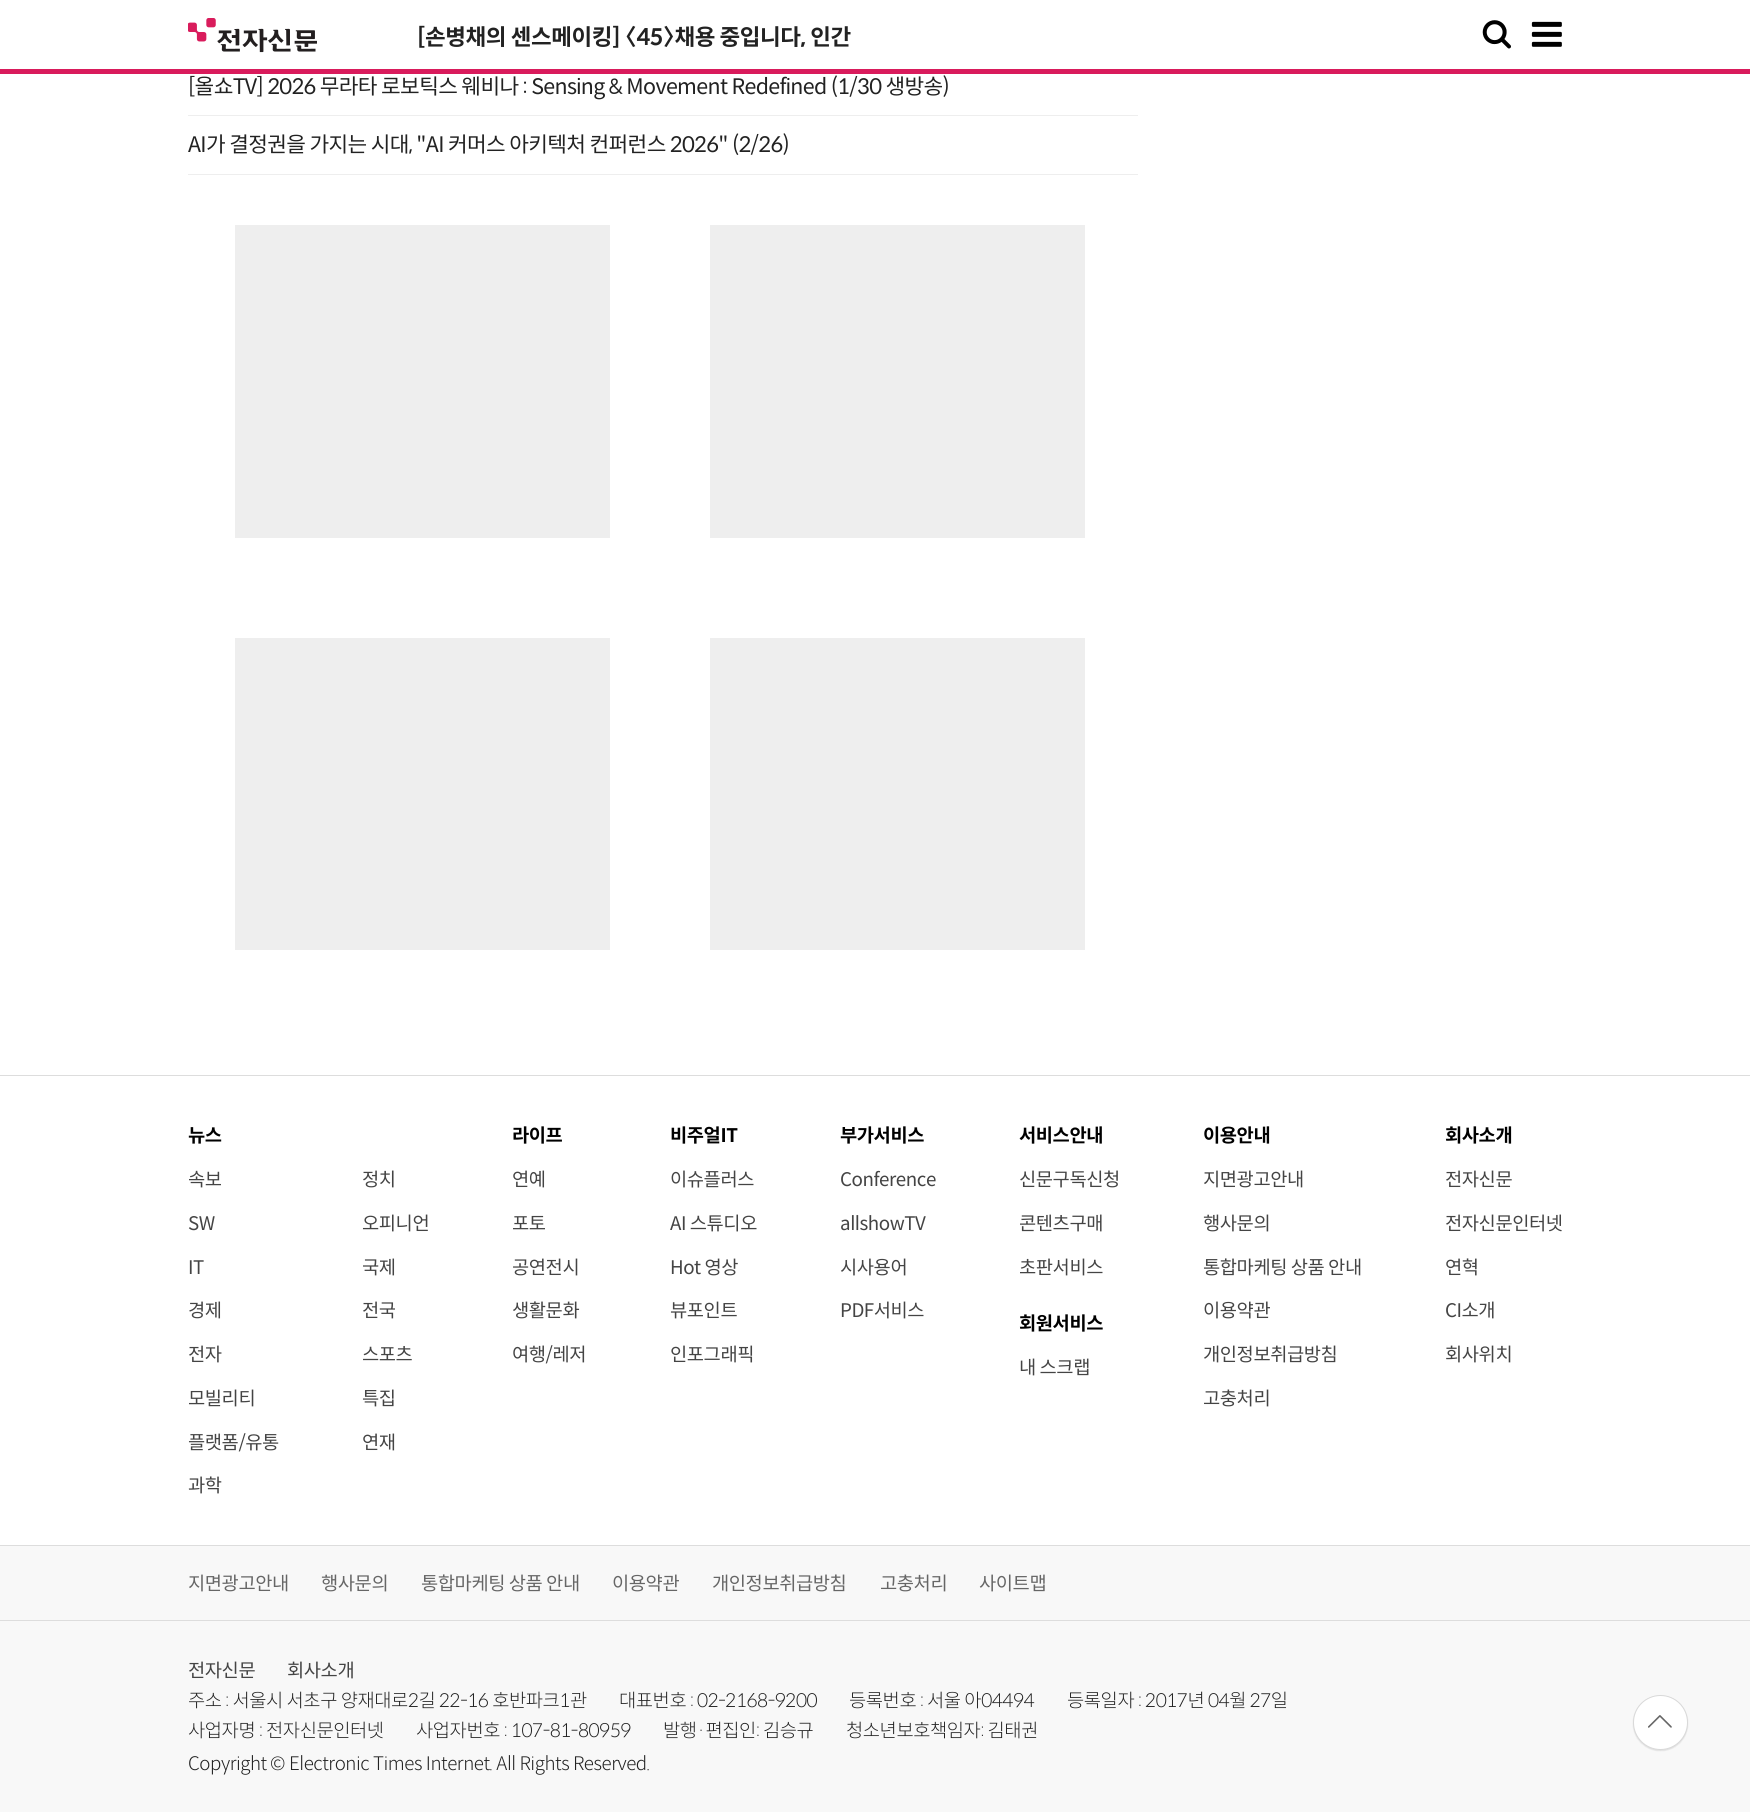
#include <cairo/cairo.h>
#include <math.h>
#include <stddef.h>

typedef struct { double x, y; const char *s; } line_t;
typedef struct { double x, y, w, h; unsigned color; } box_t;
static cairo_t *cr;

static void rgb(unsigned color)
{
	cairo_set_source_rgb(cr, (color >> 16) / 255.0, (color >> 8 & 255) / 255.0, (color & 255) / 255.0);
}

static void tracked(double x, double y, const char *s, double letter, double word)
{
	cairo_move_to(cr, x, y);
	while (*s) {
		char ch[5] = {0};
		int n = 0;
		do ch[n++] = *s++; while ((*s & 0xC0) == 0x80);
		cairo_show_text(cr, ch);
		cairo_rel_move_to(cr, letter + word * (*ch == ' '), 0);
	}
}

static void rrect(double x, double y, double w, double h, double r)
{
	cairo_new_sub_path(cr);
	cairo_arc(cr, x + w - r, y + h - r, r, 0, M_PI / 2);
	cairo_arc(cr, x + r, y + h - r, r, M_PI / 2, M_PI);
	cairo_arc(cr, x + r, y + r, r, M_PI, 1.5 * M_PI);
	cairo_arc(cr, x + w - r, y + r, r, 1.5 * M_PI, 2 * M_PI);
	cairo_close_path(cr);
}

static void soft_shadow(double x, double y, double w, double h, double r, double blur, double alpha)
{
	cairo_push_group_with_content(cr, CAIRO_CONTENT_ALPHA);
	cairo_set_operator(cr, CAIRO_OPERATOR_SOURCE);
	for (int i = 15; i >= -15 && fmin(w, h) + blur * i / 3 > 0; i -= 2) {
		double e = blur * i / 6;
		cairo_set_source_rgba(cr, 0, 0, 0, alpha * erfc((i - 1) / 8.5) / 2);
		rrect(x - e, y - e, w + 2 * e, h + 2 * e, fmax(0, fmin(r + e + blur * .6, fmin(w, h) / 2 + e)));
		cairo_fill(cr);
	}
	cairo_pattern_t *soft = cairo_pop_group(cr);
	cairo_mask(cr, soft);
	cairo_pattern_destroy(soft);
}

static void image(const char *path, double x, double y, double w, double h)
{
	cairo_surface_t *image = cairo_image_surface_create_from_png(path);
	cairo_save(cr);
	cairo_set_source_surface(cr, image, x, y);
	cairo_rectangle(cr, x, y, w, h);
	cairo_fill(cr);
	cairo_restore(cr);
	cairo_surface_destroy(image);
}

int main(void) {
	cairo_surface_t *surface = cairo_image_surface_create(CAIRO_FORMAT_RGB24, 1750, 1812);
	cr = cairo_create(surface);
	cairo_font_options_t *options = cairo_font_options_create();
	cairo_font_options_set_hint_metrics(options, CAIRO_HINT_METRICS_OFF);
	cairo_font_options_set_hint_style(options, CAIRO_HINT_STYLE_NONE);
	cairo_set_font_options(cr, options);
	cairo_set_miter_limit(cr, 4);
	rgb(0xffffff);
	cairo_paint(cr);
	image("img/1.png", 188, 18, 129, 35);
	image("img/2.png", 1482, 20, 29, 29);
	image("img/3.png", 1531, 21, 31, 26);
	{
		static const box_t items[] = {
			{0, 69, 1750, 5, 0xd91b5c},
			{188, 115, 950, 1, 0xeeeeee},
			{188, 174, 950, 1, 0xeeeeee},
			{235, 225, 375, 313, 0xeeeeee},
			{710, 225, 375, 313, 0xeeeeee},
			{235, 638, 375, 312, 0xeeeeee},
			{710, 638, 375, 312, 0xeeeeee},
			{0, 1075, 1750, 1, 0xdddddd},
			{0, 1546, 1750, 74, 0xf8f8f8},
			{0, 1545, 1750, 1, 0xdddddd},
			{0, 1621, 1750, 191, 0xf8f8f8},
			{0, 1620, 1750, 1, 0xdddddd},
		};
		for (size_t i = 0; i < sizeof items / sizeof *items; i++) {
			rgb(items[i].color);
			cairo_rectangle(cr, items[i].x, items[i].y, items[i].w, items[i].h);
			cairo_fill(cr);
		}
	}
	rgb(0x000000);
	soft_shadow(1633, 1696, 55, 55, 27.5, 0.5, 0.1);
	rgb(0xffffff);
	cairo_arc(cr, 1660.5, 1722.5, 27.5, 0, 2 * M_PI);
	cairo_fill(cr);
	cairo_arc(cr, 1660.5, 1722.5, 27, 0, 2 * M_PI);
	cairo_set_source_rgba(cr, 0, 0, 0, 0.15);
	cairo_set_line_width(cr, 1);
	cairo_stroke(cr);
	image("img/4.png", 1648, 1715, 24, 13);
	cairo_select_font_face(cr, "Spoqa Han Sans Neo", CAIRO_FONT_SLANT_NORMAL, CAIRO_FONT_WEIGHT_BOLD);
	cairo_set_font_size(cr, 22.5);
	rgb(0x222222);
	tracked(417, 45, "[손병채의 센스메이킹] 〈45〉채용 중입니다, 인간", -0.45, 0);
	cairo_select_font_face(cr, "Spoqa Han Sans Neo", CAIRO_FONT_SLANT_NORMAL, CAIRO_FONT_WEIGHT_NORMAL);
	cairo_set_font_size(cr, 21.4);
	tracked(188, 94, "[올쇼TV] 2026 무라타 로보틱스 웨비나 : Sensing & Movement Redefined (1/30 생방송)", -0.65, 0);
	tracked(188, 152, "AI가 결정권을 가지는 시대, \"AI 커머스 아키텍처 컨퍼런스 2026\" (2/26)", -0.65, 0);
	cairo_select_font_face(cr, "Spoqa Han Sans Neo", CAIRO_FONT_SLANT_NORMAL, CAIRO_FONT_WEIGHT_BOLD);
	cairo_set_font_size(cr, 18.75);
	rgb(0x000000);
	tracked(188, 1142, "뉴스", -0.45, 0);
	cairo_select_font_face(cr, "Spoqa Han Sans Neo", CAIRO_FONT_SLANT_NORMAL, CAIRO_FONT_WEIGHT_NORMAL);
	rgb(0x444444);
	{
		static const line_t items[] = {
			{188, 1186, "속보"},
			{188, 1230, "SW"},
			{188, 1274, "IT"},
			{188, 1317, "경제"},
			{188, 1361, "전자"},
			{188, 1405, "모빌리티"},
			{188, 1449, "플랫폼/유통"},
			{188, 1492, "과학"},
			{362, 1186, "정치"},
			{362, 1230, "오피니언"},
			{362, 1274, "국제"},
			{362, 1317, "전국"},
			{362, 1361, "스포츠"},
			{362, 1405, "특집"},
			{362, 1449, "연재"},
		};
		for (size_t i = 0; i < sizeof items / sizeof *items; i++) {
			tracked(items[i].x, items[i].y, items[i].s, -0.45, 0);
		}
	}
	cairo_select_font_face(cr, "Spoqa Han Sans Neo", CAIRO_FONT_SLANT_NORMAL, CAIRO_FONT_WEIGHT_BOLD);
	rgb(0x000000);
	tracked(512, 1142, "라이프", -0.45, 0);
	cairo_select_font_face(cr, "Spoqa Han Sans Neo", CAIRO_FONT_SLANT_NORMAL, CAIRO_FONT_WEIGHT_NORMAL);
	rgb(0x444444);
	{
		static const line_t items[] = {
			{512, 1186, "연예"},
			{512, 1230, "포토"},
			{512, 1274, "공연전시"},
			{512, 1317, "생활문화"},
			{512, 1361, "여행/레저"},
		};
		for (size_t i = 0; i < sizeof items / sizeof *items; i++) {
			tracked(items[i].x, items[i].y, items[i].s, -0.45, 0);
		}
	}
	cairo_select_font_face(cr, "Spoqa Han Sans Neo", CAIRO_FONT_SLANT_NORMAL, CAIRO_FONT_WEIGHT_BOLD);
	rgb(0x000000);
	tracked(670, 1142, "비주얼IT", -0.45, 0);
	cairo_select_font_face(cr, "Spoqa Han Sans Neo", CAIRO_FONT_SLANT_NORMAL, CAIRO_FONT_WEIGHT_NORMAL);
	rgb(0x444444);
	{
		static const line_t items[] = {
			{670, 1186, "이슈플러스"},
			{670, 1230, "AI 스튜디오"},
			{670, 1274, "Hot 영상"},
			{670, 1317, "뷰포인트"},
			{670, 1361, "인포그래픽"},
		};
		for (size_t i = 0; i < sizeof items / sizeof *items; i++) {
			tracked(items[i].x, items[i].y, items[i].s, -0.45, 0);
		}
	}
	cairo_select_font_face(cr, "Spoqa Han Sans Neo", CAIRO_FONT_SLANT_NORMAL, CAIRO_FONT_WEIGHT_BOLD);
	rgb(0x000000);
	tracked(840, 1142, "부가서비스", -0.45, 0);
	cairo_select_font_face(cr, "Spoqa Han Sans Neo", CAIRO_FONT_SLANT_NORMAL, CAIRO_FONT_WEIGHT_NORMAL);
	rgb(0x444444);
	{
		static const line_t items[] = {
			{840, 1186, "Conference"},
			{840, 1230, "allshowTV"},
			{840, 1274, "시사용어"},
			{840, 1317, "PDF서비스"},
		};
		for (size_t i = 0; i < sizeof items / sizeof *items; i++) {
			tracked(items[i].x, items[i].y, items[i].s, -0.45, 0);
		}
	}
	cairo_select_font_face(cr, "Spoqa Han Sans Neo", CAIRO_FONT_SLANT_NORMAL, CAIRO_FONT_WEIGHT_BOLD);
	rgb(0x000000);
	tracked(1019, 1142, "서비스안내", -0.45, 0);
	cairo_select_font_face(cr, "Spoqa Han Sans Neo", CAIRO_FONT_SLANT_NORMAL, CAIRO_FONT_WEIGHT_NORMAL);
	rgb(0x444444);
	{
		static const line_t items[] = {
			{1019, 1186, "신문구독신청"},
			{1019, 1230, "콘텐츠구매"},
			{1019, 1274, "초판서비스"},
		};
		for (size_t i = 0; i < sizeof items / sizeof *items; i++) {
			tracked(items[i].x, items[i].y, items[i].s, -0.45, 0);
		}
	}
	cairo_select_font_face(cr, "Spoqa Han Sans Neo", CAIRO_FONT_SLANT_NORMAL, CAIRO_FONT_WEIGHT_BOLD);
	rgb(0x000000);
	tracked(1019, 1330, "회원서비스", -0.45, 0);
	cairo_select_font_face(cr, "Spoqa Han Sans Neo", CAIRO_FONT_SLANT_NORMAL, CAIRO_FONT_WEIGHT_NORMAL);
	rgb(0x444444);
	tracked(1019, 1374, "내 스크랩", -0.45, 0);
	cairo_select_font_face(cr, "Spoqa Han Sans Neo", CAIRO_FONT_SLANT_NORMAL, CAIRO_FONT_WEIGHT_BOLD);
	rgb(0x000000);
	tracked(1203, 1142, "이용안내", -0.45, 0);
	cairo_select_font_face(cr, "Spoqa Han Sans Neo", CAIRO_FONT_SLANT_NORMAL, CAIRO_FONT_WEIGHT_NORMAL);
	rgb(0x444444);
	{
		static const line_t items[] = {
			{1203, 1186, "지면광고안내"},
			{1203, 1230, "행사문의"},
			{1203, 1274, "통합마케팅 상품 안내"},
			{1203, 1317, "이용약관"},
			{1203, 1361, "개인정보취급방침"},
			{1203, 1405, "고충처리"},
		};
		for (size_t i = 0; i < sizeof items / sizeof *items; i++) {
			tracked(items[i].x, items[i].y, items[i].s, -0.45, 0);
		}
	}
	cairo_select_font_face(cr, "Spoqa Han Sans Neo", CAIRO_FONT_SLANT_NORMAL, CAIRO_FONT_WEIGHT_BOLD);
	rgb(0x000000);
	tracked(1445, 1142, "회사소개", -0.45, 0);
	cairo_select_font_face(cr, "Spoqa Han Sans Neo", CAIRO_FONT_SLANT_NORMAL, CAIRO_FONT_WEIGHT_NORMAL);
	rgb(0x444444);
	{
		static const line_t items[] = {
			{1445, 1186, "전자신문"},
			{1445, 1230, "전자신문인터넷"},
			{1445, 1274, "연혁"},
			{1445, 1317, "CI소개"},
			{1445, 1361, "회사위치"},
		};
		for (size_t i = 0; i < sizeof items / sizeof *items; i++) {
			tracked(items[i].x, items[i].y, items[i].s, -0.45, 0);
		}
	}
	rgb(0x666666);
	{
		static const line_t items[] = {
			{188, 1590, "지면광고안내"},
			{321, 1590, "행사문의"},
			{421, 1590, "통합마케팅 상품 안내"},
			{612, 1590, "이용약관"},
			{712, 1590, "개인정보취급방침"},
			{880, 1590, "고충처리"},
			{979, 1590, "사이트맵"},
		};
		for (size_t i = 0; i < sizeof items / sizeof *items; i++) {
			tracked(items[i].x, items[i].y, items[i].s, -0.45, 0);
		}
	}
	rgb(0x444444);
	tracked(188, 1677, "전자신문", -0.45, 0);
	tracked(287, 1677, "회사소개", -0.45, 0);
	cairo_select_font_face(cr, "Spoqa Han Sans Neo Light", CAIRO_FONT_SLANT_NORMAL, CAIRO_FONT_WEIGHT_NORMAL);
	rgb(0x222222);
	{
		static const line_t items[] = {
			{188, 1707, "주소 : 서울시 서초구 양재대로2길 22-16 호반파크1관"},
			{619, 1707, "대표번호 : 02-2168-9200"},
			{849, 1707, "등록번호 : 서울 아04494"},
			{1067, 1707, "등록일자 : 2017년 04월 27일"},
			{188, 1737, "사업자명 : 전자신문인터넷"},
			{416, 1737, "사업자번호 : 107-81-80959"},
			{663, 1737, "발행·편집인: 김승규"},
			{846, 1737, "청소년보호책임자: 김태권"},
			{188, 1770, "Copyright"},
		};
		for (size_t i = 0; i < sizeof items / sizeof *items; i++) {
			tracked(items[i].x, items[i].y, items[i].s, -0.45, 0);
		}
	}
	cairo_select_font_face(cr, "Noto Sans KR Light", CAIRO_FONT_SLANT_NORMAL, CAIRO_FONT_WEIGHT_NORMAL);
	tracked(270, 1770, "©", -0.45, 0);
	cairo_select_font_face(cr, "Spoqa Han Sans Neo Light", CAIRO_FONT_SLANT_NORMAL, CAIRO_FONT_WEIGHT_NORMAL);
	tracked(289, 1770, "Electronic Times Internet. All Rights Reserved.", -0.45, 0);
	cairo_surface_write_to_png(surface, "page.png");
	cairo_font_options_destroy(options);
	cairo_destroy(cr);
	cairo_surface_destroy(surface);
	return 0;
}
